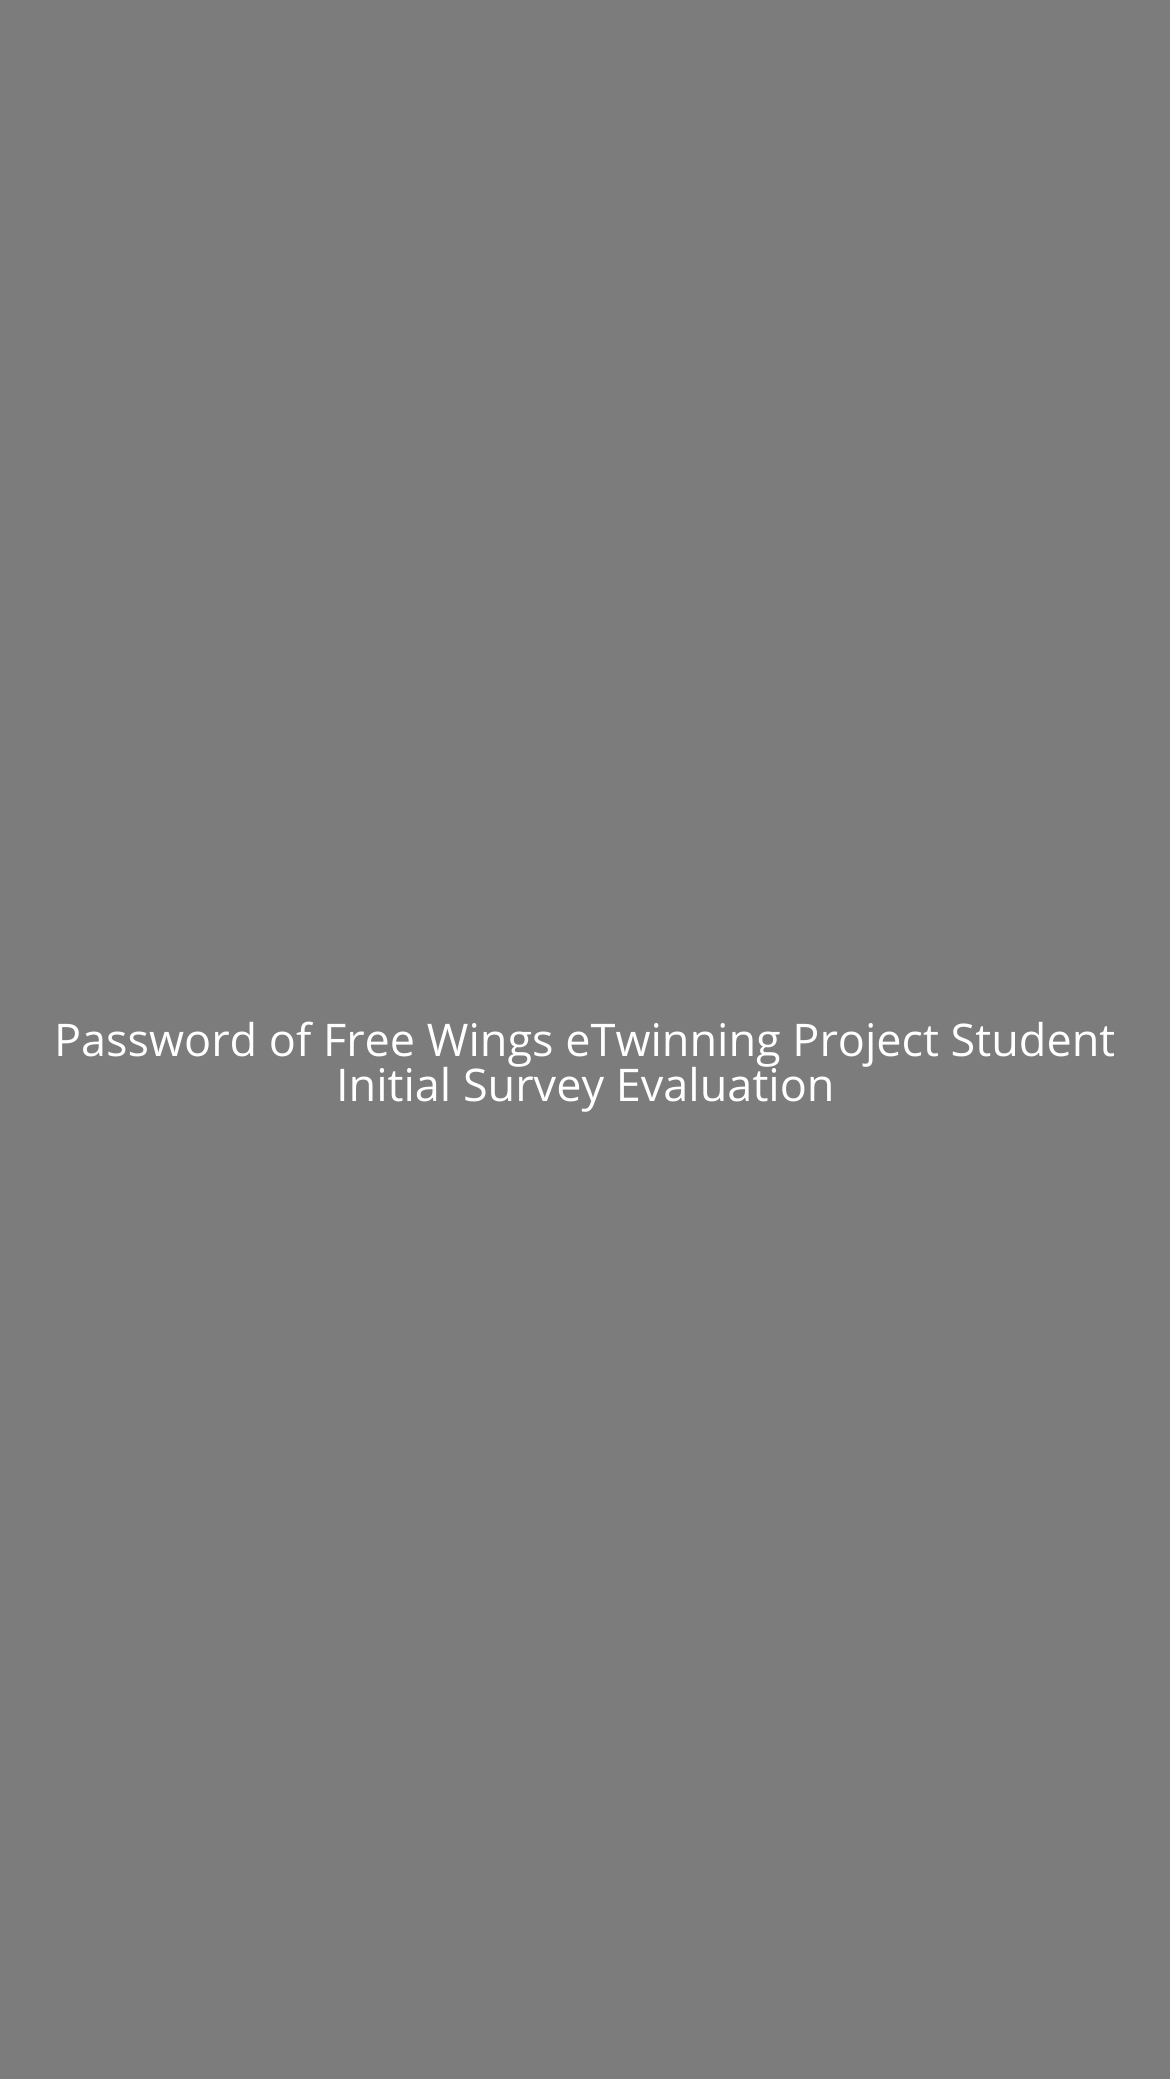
#include <cairo/cairo.h>
#include <math.h>
#include <stddef.h>

static cairo_t *cr;

static void rgb(unsigned color)
{
	cairo_set_source_rgb(cr, (color >> 16) / 255.0, (color >> 8 & 255) / 255.0, (color & 255) / 255.0);
}

int main(void) {
	cairo_surface_t *surface = cairo_image_surface_create(CAIRO_FORMAT_RGB24, 1170, 2079);
	cr = cairo_create(surface);
	cairo_font_options_t *options = cairo_font_options_create();
	cairo_font_options_set_hint_metrics(options, CAIRO_HINT_METRICS_OFF);
	cairo_font_options_set_hint_style(options, CAIRO_HINT_STYLE_NONE);
	cairo_set_font_options(cr, options);
	cairo_set_miter_limit(cr, 4);
	rgb(0x7c7c7c);
	cairo_paint(cr);
	cairo_select_font_face(cr, "Open Sans", CAIRO_FONT_SLANT_NORMAL, CAIRO_FONT_WEIGHT_NORMAL);
	cairo_set_font_size(cr, 45);
	rgb(0xffffff);
	cairo_move_to(cr, 54, 1056);
	cairo_show_text(cr, "Password of Free Wings eTwinning Project Student");
	cairo_move_to(cr, 336, 1101);
	cairo_show_text(cr, "Initial Survey Evaluation");
	cairo_surface_write_to_png(surface, "page.png");
	cairo_font_options_destroy(options);
	cairo_destroy(cr);
	cairo_surface_destroy(surface);
	return 0;
}
